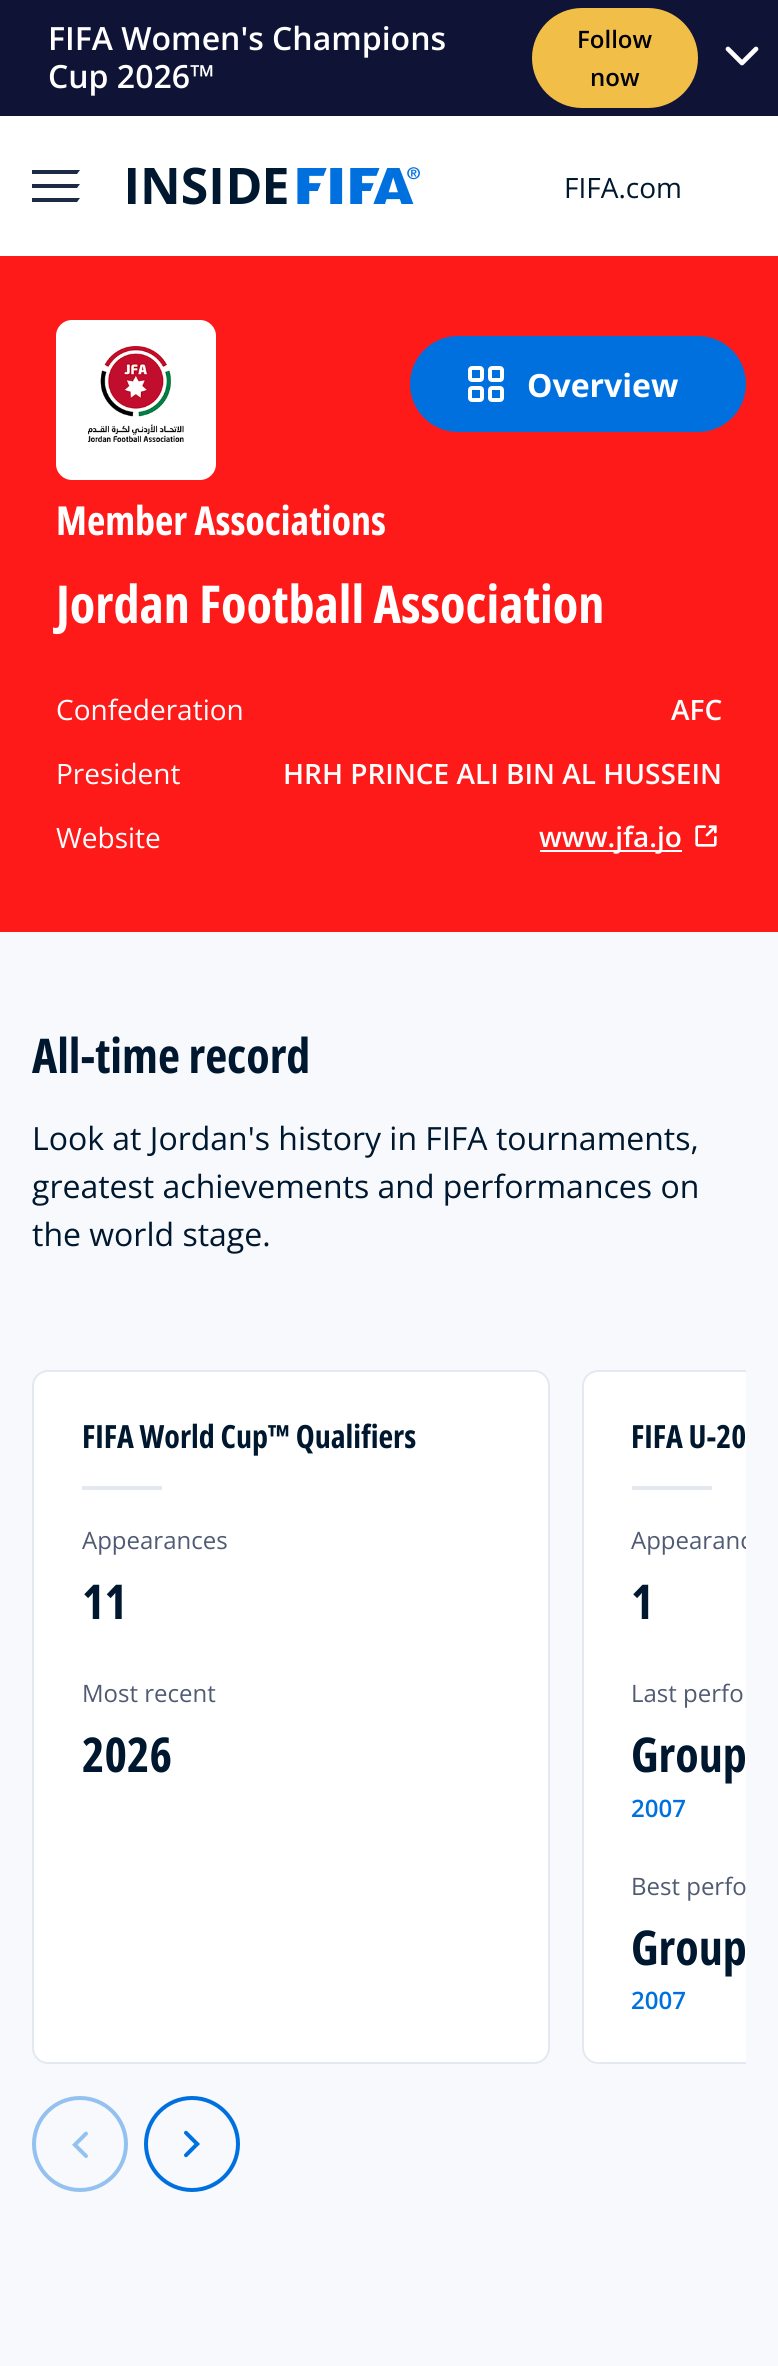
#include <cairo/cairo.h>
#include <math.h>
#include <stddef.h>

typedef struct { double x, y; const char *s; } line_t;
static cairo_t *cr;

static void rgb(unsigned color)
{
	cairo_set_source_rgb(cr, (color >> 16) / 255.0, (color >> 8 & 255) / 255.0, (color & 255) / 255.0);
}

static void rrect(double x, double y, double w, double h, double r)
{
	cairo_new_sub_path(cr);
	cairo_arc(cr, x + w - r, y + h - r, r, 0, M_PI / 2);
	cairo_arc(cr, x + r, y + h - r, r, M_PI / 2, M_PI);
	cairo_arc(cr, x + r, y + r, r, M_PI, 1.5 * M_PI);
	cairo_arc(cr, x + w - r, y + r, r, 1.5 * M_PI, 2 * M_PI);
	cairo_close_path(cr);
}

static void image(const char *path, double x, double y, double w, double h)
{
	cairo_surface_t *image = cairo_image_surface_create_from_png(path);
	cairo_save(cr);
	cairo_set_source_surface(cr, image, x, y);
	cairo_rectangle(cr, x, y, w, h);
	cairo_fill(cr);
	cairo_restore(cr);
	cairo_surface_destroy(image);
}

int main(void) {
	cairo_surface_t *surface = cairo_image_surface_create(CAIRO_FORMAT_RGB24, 778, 2366);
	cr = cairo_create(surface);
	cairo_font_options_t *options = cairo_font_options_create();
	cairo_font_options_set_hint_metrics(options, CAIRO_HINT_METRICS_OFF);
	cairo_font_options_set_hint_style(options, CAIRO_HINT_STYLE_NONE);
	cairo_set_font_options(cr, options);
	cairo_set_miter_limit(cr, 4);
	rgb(0xffffff);
	cairo_paint(cr);
	rgb(0x0f1336);
	cairo_rectangle(cr, 0, 0, 778, 116);
	cairo_fill(cr);
	rgb(0xf1be48);
	rrect(532, 8, 166, 100, 50);
	cairo_fill(cr);
	cairo_new_path(cr);
	cairo_move_to(cr, 728, 49);
	cairo_line_to(cr, 742, 63);
	cairo_line_to(cr, 756, 49);
	rgb(0xffffff);
	cairo_set_line_width(cr, 4.7);
	cairo_set_line_cap(cr, CAIRO_LINE_CAP_ROUND);
	cairo_set_line_join(cr, CAIRO_LINE_JOIN_ROUND);
	cairo_stroke(cr);
	rgb(0x1d2a45);
	cairo_new_path(cr);
	cairo_move_to(cr, 32, 170);
	cairo_line_to(cr, 80, 170);
	cairo_line_to(cr, 77, 174);
	cairo_line_to(cr, 32, 174);
	cairo_close_path(cr);
	cairo_move_to(cr, 32, 188);
	cairo_line_to(cr, 77, 188);
	cairo_line_to(cr, 80, 184);
	cairo_line_to(cr, 32, 184);
	cairo_close_path(cr);
	cairo_move_to(cr, 32, 202);
	cairo_line_to(cr, 77, 202);
	cairo_line_to(cr, 80, 198);
	cairo_line_to(cr, 32, 198);
	cairo_close_path(cr);
	cairo_fill(cr);
	image("img/1.png", 128, 167, 292, 38);
	rgb(0xff1a1a);
	cairo_rectangle(cr, 0, 256, 778, 676);
	cairo_fill(cr);
	rgb(0x0070df);
	rrect(410, 336, 336, 96, 48);
	cairo_fill(cr);
	image("img/2.png", 468, 366, 36, 36);
	rgb(0xffffff);
	rrect(56, 320, 160, 160, 16);
	cairo_fill(cr);
	image("img/3.png", 88, 346, 96, 96);
	cairo_rectangle(cr, 540, 850, 142, 2);
	cairo_fill(cr);
	image("img/4.png", 695, 825, 22, 22);
	rgb(0xf7f9fc);
	cairo_rectangle(cr, 0, 932, 778, 1434);
	cairo_fill(cr);
	rgb(0xffffff);
	rrect(33, 1371, 516, 692, 15);
	cairo_fill_preserve(cr);
	rgb(0xe4e8f0);
	cairo_set_line_width(cr, 2);
	cairo_set_line_cap(cr, CAIRO_LINE_CAP_BUTT);
	cairo_set_line_join(cr, CAIRO_LINE_JOIN_MITER);
	cairo_stroke(cr);
	cairo_rectangle(cr, 82, 1486, 80, 4);
	cairo_fill(cr);
	rgb(0xffffff);
	cairo_new_path(cr);
	cairo_move_to(cr, 598, 1370);
	cairo_line_to(cr, 746, 1370);
	cairo_line_to(cr, 746, 2064);
	cairo_line_to(cr, 598, 2064);
	cairo_curve_to(cr, 589, 2064, 582, 2057, 582, 2048);
	cairo_line_to(cr, 582, 1386);
	cairo_curve_to(cr, 582, 1377, 589, 1370, 598, 1370);
	cairo_close_path(cr);
	cairo_fill(cr);
	cairo_save(cr);
	cairo_rectangle(cr, 32, 1370, 714, 854);
	cairo_clip(cr);
	rrect(583, 1371, 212, 692, 15);
	rgb(0xe4e8f0);
	cairo_stroke(cr);
	cairo_restore(cr);
	rgb(0xe4e8f0);
	cairo_rectangle(cr, 632, 1486, 80, 4);
	cairo_fill(cr);
	cairo_arc(cr, 80, 2144, 46, 0, 2 * M_PI);
	rgb(0x94c2f0);
	cairo_set_line_width(cr, 4);
	cairo_stroke(cr);
	image("img/5.png", 72, 2131, 16, 27);
	cairo_arc(cr, 192, 2144, 46, 0, 2 * M_PI);
	rgb(0x0070df);
	cairo_stroke(cr);
	image("img/6.png", 184, 2130, 16, 28);
	cairo_select_font_face(cr, "Open Sans SemiBold", CAIRO_FONT_SLANT_NORMAL, CAIRO_FONT_WEIGHT_NORMAL);
	cairo_set_font_size(cr, 32);
	rgb(0xffffff);
	cairo_move_to(cr, 48, 50);
	cairo_show_text(cr, "FIFA Women's Champions");
	cairo_move_to(cr, 48, 88);
	cairo_show_text(cr, "Cup 2026™");
	cairo_set_font_size(cr, 24);
	rgb(0x000000);
	cairo_move_to(cr, 577, 48);
	cairo_show_text(cr, "Follow");
	cairo_move_to(cr, 590, 86);
	cairo_show_text(cr, "now");
	cairo_select_font_face(cr, "Open Sans", CAIRO_FONT_SLANT_NORMAL, CAIRO_FONT_WEIGHT_NORMAL);
	cairo_set_font_size(cr, 28);
	rgb(0x00182f);
	cairo_move_to(cr, 564, 198);
	cairo_show_text(cr, "FIFA.com");
	cairo_select_font_face(cr, "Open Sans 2", CAIRO_FONT_SLANT_NORMAL, CAIRO_FONT_WEIGHT_BOLD);
	cairo_set_font_size(cr, 32);
	rgb(0xffffff);
	cairo_move_to(cr, 527, 397);
	cairo_show_text(cr, "Overview");
	cairo_select_font_face(cr, "Open Sans", CAIRO_FONT_SLANT_NORMAL, CAIRO_FONT_WEIGHT_BOLD);
	cairo_set_font_size(cr, 40);
	cairo_move_to(cr, 56, 535);
	cairo_show_text(cr, "Member Associations");
	cairo_set_font_size(cr, 52.25);
	cairo_move_to(cr, 56, 623);
	cairo_show_text(cr, "Jordan Football Association");
	cairo_select_font_face(cr, "Open Sans", CAIRO_FONT_SLANT_NORMAL, CAIRO_FONT_WEIGHT_NORMAL);
	cairo_set_font_size(cr, 28);
	cairo_move_to(cr, 56, 720);
	cairo_show_text(cr, "Confederation");
	cairo_select_font_face(cr, "Open Sans SemiBold", CAIRO_FONT_SLANT_NORMAL, CAIRO_FONT_WEIGHT_NORMAL);
	cairo_move_to(cr, 671, 720);
	cairo_show_text(cr, "AFC");
	cairo_select_font_face(cr, "Open Sans", CAIRO_FONT_SLANT_NORMAL, CAIRO_FONT_WEIGHT_NORMAL);
	cairo_move_to(cr, 56, 784);
	cairo_show_text(cr, "President");
	cairo_select_font_face(cr, "Open Sans SemiBold", CAIRO_FONT_SLANT_NORMAL, CAIRO_FONT_WEIGHT_NORMAL);
	cairo_move_to(cr, 283, 784);
	cairo_show_text(cr, "HRH PRINCE ALI BIN AL HUSSEIN");
	cairo_select_font_face(cr, "Open Sans", CAIRO_FONT_SLANT_NORMAL, CAIRO_FONT_WEIGHT_NORMAL);
	cairo_move_to(cr, 56, 848);
	cairo_show_text(cr, "Website");
	cairo_select_font_face(cr, "Open Sans SemiBold", CAIRO_FONT_SLANT_NORMAL, CAIRO_FONT_WEIGHT_NORMAL);
	cairo_move_to(cr, 539, 847);
	cairo_show_text(cr, "www.jfa.jo");
	cairo_select_font_face(cr, "Open Sans", CAIRO_FONT_SLANT_NORMAL, CAIRO_FONT_WEIGHT_BOLD);
	cairo_set_font_size(cr, 48);
	rgb(0x00182f);
	cairo_move_to(cr, 32, 1073);
	cairo_show_text(cr, "All-time record");
	cairo_select_font_face(cr, "Open Sans", CAIRO_FONT_SLANT_NORMAL, CAIRO_FONT_WEIGHT_NORMAL);
	cairo_set_font_size(cr, 32);
	{
		static const line_t items[] = {
			{32, 1150, "Look at Jordan's history in FIFA tournaments,"},
			{32, 1198, "greatest achievements and performances on"},
			{32, 1246, "the world stage."},
		};
		for (size_t i = 0; i < sizeof items / sizeof *items; i++) {
			cairo_move_to(cr, items[i].x, items[i].y);
			cairo_show_text(cr, items[i].s);
		}
	}
	cairo_select_font_face(cr, "Open Sans", CAIRO_FONT_SLANT_NORMAL, CAIRO_FONT_WEIGHT_BOLD);
	cairo_move_to(cr, 82, 1448);
	cairo_show_text(cr, "FIFA World Cup™ Qualifiers");
	cairo_select_font_face(cr, "Open Sans", CAIRO_FONT_SLANT_NORMAL, CAIRO_FONT_WEIGHT_NORMAL);
	cairo_set_font_size(cr, 24);
	rgb(0x505b73);
	cairo_move_to(cr, 82, 1549);
	cairo_show_text(cr, "Appearances");
	cairo_select_font_face(cr, "Open Sans", CAIRO_FONT_SLANT_NORMAL, CAIRO_FONT_WEIGHT_BOLD);
	cairo_set_font_size(cr, 48);
	rgb(0x00182f);
	cairo_move_to(cr, 82, 1619);
	cairo_show_text(cr, "11");
	cairo_select_font_face(cr, "Open Sans", CAIRO_FONT_SLANT_NORMAL, CAIRO_FONT_WEIGHT_NORMAL);
	cairo_set_font_size(cr, 24);
	rgb(0x505b73);
	cairo_move_to(cr, 82, 1702);
	cairo_show_text(cr, "Most recent");
	cairo_select_font_face(cr, "Open Sans", CAIRO_FONT_SLANT_NORMAL, CAIRO_FONT_WEIGHT_BOLD);
	cairo_set_font_size(cr, 48);
	rgb(0x00182f);
	cairo_move_to(cr, 82, 1772);
	cairo_show_text(cr, "2026");
	cairo_set_font_size(cr, 32);
	cairo_move_to(cr, 631, 1448);
	cairo_show_text(cr, "FIFA U-20");
	cairo_save(cr);
	cairo_rectangle(cr, 32, 1370, 714, 854);
	cairo_clip(cr);
	cairo_select_font_face(cr, "Open Sans", CAIRO_FONT_SLANT_NORMAL, CAIRO_FONT_WEIGHT_NORMAL);
	cairo_set_font_size(cr, 24);
	rgb(0x505b73);
	cairo_move_to(cr, 631, 1549);
	cairo_show_text(cr, "Appearanc");
	cairo_restore(cr);
	cairo_set_font_size(cr, 48);
	cairo_move_to(cr, 631, 1619);
	cairo_show_text(cr, "1");
	cairo_select_font_face(cr, "Open Sans", CAIRO_FONT_SLANT_NORMAL, CAIRO_FONT_WEIGHT_NORMAL);
	cairo_set_font_size(cr, 24);
	rgb(0x505b73);
	cairo_move_to(cr, 631, 1702);
	cairo_show_text(cr, "Last perfo");
	cairo_select_font_face(cr, "Open Sans", CAIRO_FONT_SLANT_NORMAL, CAIRO_FONT_WEIGHT_BOLD);
	cairo_set_font_size(cr, 48);
	rgb(0x00182f);
	cairo_move_to(cr, 631, 1772);
	cairo_show_text(cr, "Group");
	cairo_select_font_face(cr, "Open Sans SemiBold", CAIRO_FONT_SLANT_NORMAL, CAIRO_FONT_WEIGHT_NORMAL);
	cairo_set_font_size(cr, 24);
	rgb(0x0070df);
	cairo_move_to(cr, 631, 1817);
	cairo_show_text(cr, "2007");
	cairo_select_font_face(cr, "Open Sans", CAIRO_FONT_SLANT_NORMAL, CAIRO_FONT_WEIGHT_NORMAL);
	rgb(0x505b73);
	cairo_move_to(cr, 631, 1895);
	cairo_show_text(cr, "Best perfo");
	cairo_select_font_face(cr, "Open Sans", CAIRO_FONT_SLANT_NORMAL, CAIRO_FONT_WEIGHT_BOLD);
	cairo_set_font_size(cr, 48);
	rgb(0x00182f);
	cairo_move_to(cr, 631, 1965);
	cairo_show_text(cr, "Group");
	cairo_select_font_face(cr, "Open Sans SemiBold", CAIRO_FONT_SLANT_NORMAL, CAIRO_FONT_WEIGHT_NORMAL);
	cairo_set_font_size(cr, 24);
	rgb(0x0070df);
	cairo_move_to(cr, 631, 2009);
	cairo_show_text(cr, "2007");
	cairo_surface_write_to_png(surface, "page.png");
	cairo_font_options_destroy(options);
	cairo_destroy(cr);
	cairo_surface_destroy(surface);
	return 0;
}
